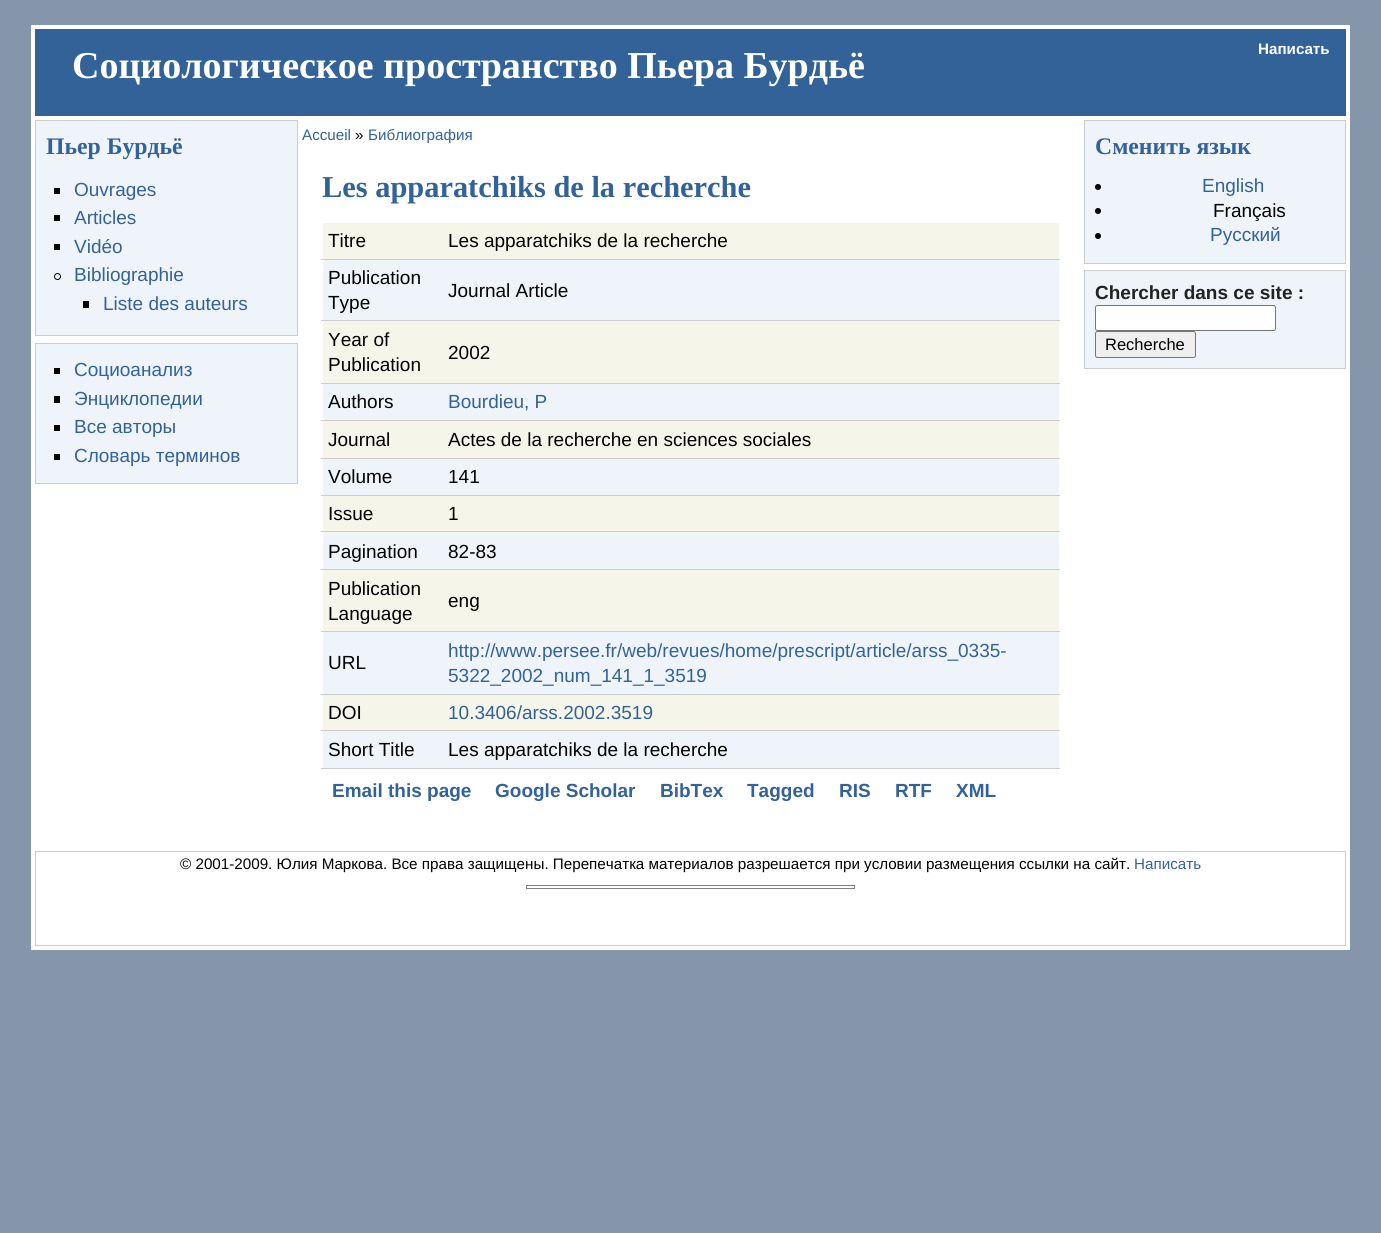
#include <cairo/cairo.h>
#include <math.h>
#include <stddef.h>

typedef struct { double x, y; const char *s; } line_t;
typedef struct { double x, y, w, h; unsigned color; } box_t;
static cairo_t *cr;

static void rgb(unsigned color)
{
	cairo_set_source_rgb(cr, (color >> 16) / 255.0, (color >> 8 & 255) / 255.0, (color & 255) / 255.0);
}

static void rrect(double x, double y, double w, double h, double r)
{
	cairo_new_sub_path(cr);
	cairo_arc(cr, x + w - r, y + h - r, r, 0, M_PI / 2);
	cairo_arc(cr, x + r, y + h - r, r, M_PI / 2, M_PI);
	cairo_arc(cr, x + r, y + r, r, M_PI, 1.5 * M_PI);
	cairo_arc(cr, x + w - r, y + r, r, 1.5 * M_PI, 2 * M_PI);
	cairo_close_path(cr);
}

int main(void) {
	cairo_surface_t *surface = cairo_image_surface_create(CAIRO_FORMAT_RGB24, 1381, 1233);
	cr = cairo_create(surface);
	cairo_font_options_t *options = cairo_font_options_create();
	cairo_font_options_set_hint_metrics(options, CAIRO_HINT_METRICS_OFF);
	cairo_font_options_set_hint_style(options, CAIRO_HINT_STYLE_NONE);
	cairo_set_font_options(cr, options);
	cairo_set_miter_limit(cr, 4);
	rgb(0x8596aa);
	cairo_paint(cr);
	rgb(0xffffff);
	cairo_rectangle(cr, 31, 25, 1319, 925);
	cairo_fill(cr);
	rgb(0x336299);
	cairo_rectangle(cr, 35, 29, 1311, 87);
	cairo_fill(cr);
	rgb(0xeef4f9);
	cairo_rectangle(cr, 35.5, 120.5, 262, 215);
	cairo_fill_preserve(cr);
	rgb(0xcccccc);
	cairo_set_line_width(cr, 1);
	cairo_stroke(cr);
	{
		static const box_t items[] = {
			{54, 188, 6, 6, 0x000000},
			{54, 215, 6, 6, 0x000000},
			{54, 244, 6, 6, 0x000000},
		};
		for (size_t i = 0; i < sizeof items / sizeof *items; i++) {
			rgb(items[i].color);
			cairo_rectangle(cr, items[i].x, items[i].y, items[i].w, items[i].h);
			cairo_fill(cr);
		}
	}
	cairo_arc(cr, 57.5, 276.5, 3, 0, 2 * M_PI);
	cairo_stroke(cr);
	cairo_rectangle(cr, 83, 301, 6, 7);
	cairo_fill(cr);
	rgb(0xeef4f9);
	cairo_rectangle(cr, 35.5, 343.5, 262, 140);
	cairo_fill_preserve(cr);
	rgb(0xcccccc);
	cairo_stroke(cr);
	{
		static const box_t items[] = {
			{54, 368, 6, 6, 0x000000},
			{54, 396, 6, 7, 0x000000},
			{54, 425, 6, 6, 0x000000},
			{54, 454, 6, 6, 0x000000},
			{323, 223, 736, 36, 0xf5f5e9},
			{321, 259, 739, 1, 0xcccccc},
			{323, 260, 736, 60, 0xeef4f9},
			{321, 320, 739, 1, 0xcccccc},
			{323, 321, 736, 62, 0xf5f5e9},
			{321, 383, 739, 1, 0xcccccc},
			{323, 384, 736, 36, 0xeef4f9},
			{321, 420, 739, 1, 0xcccccc},
			{323, 421, 736, 37, 0xf5f5e9},
			{321, 458, 739, 1, 0xcccccc},
			{323, 459, 736, 36, 0xeef4f9},
			{321, 495, 739, 1, 0xcccccc},
			{323, 496, 736, 37, 0xf5f5e9},
			{321, 531, 739, 1, 0xcccccc},
			{323, 533, 736, 36, 0xeef4f9},
			{321, 569, 739, 1, 0xcccccc},
			{323, 570, 736, 61, 0xf5f5e9},
			{321, 631, 739, 1, 0xcccccc},
			{323, 632, 736, 62, 0xeef4f9},
			{321, 694, 739, 1, 0xcccccc},
			{323, 695, 736, 35, 0xf5f5e9},
			{321, 730, 739, 1, 0xcccccc},
			{323, 731, 736, 37, 0xeef4f9},
			{321, 768, 739, 1, 0xcccccc},
		};
		for (size_t i = 0; i < sizeof items / sizeof *items; i++) {
			rgb(items[i].color);
			cairo_rectangle(cr, items[i].x, items[i].y, items[i].w, items[i].h);
			cairo_fill(cr);
		}
	}
	rgb(0xeef4f9);
	cairo_rectangle(cr, 1084.5, 120.5, 261, 143);
	cairo_fill_preserve(cr);
	rgb(0xcccccc);
	cairo_stroke(cr);
	rgb(0x000000);
	cairo_arc(cr, 1098, 187, 3, 0, 2 * M_PI);
	cairo_fill(cr);
	cairo_arc(cr, 1098, 211, 3, 0, 2 * M_PI);
	cairo_fill(cr);
	cairo_arc(cr, 1098, 236, 3, 0, 2 * M_PI);
	cairo_fill(cr);
	rgb(0xeef4f9);
	cairo_rectangle(cr, 1084.5, 270.5, 261, 98);
	cairo_fill_preserve(cr);
	rgb(0xcccccc);
	cairo_stroke(cr);
	rgb(0xffffff);
	rrect(1095.5, 305.5, 180, 25, 2);
	cairo_fill_preserve(cr);
	rgb(0x767676);
	cairo_stroke(cr);
	rgb(0xefefef);
	rrect(1095.5, 331.5, 100, 26, 2);
	cairo_fill_preserve(cr);
	rgb(0x767676);
	cairo_stroke(cr);
	cairo_rectangle(cr, 35.5, 851.5, 1310, 94);
	rgb(0xcccccc);
	cairo_stroke(cr);
	cairo_rectangle(cr, 526.5, 885.5, 328, 3);
	rgb(0x808080);
	cairo_stroke(cr);
	cairo_select_font_face(cr, "Liberation Sans", CAIRO_FONT_SLANT_NORMAL, CAIRO_FONT_WEIGHT_BOLD);
	cairo_set_font_size(cr, 15.2);
	rgb(0xffffff);
	cairo_move_to(cr, 1258, 54);
	cairo_show_text(cr, "Написать");
	cairo_select_font_face(cr, "Liberation Serif", CAIRO_FONT_SLANT_NORMAL, CAIRO_FONT_WEIGHT_BOLD);
	cairo_set_font_size(cr, 38);
	cairo_move_to(cr, 72, 78);
	cairo_show_text(cr, "Социологическое пространство Пьера Бурдьё");
	cairo_set_font_size(cr, 23.75);
	rgb(0x336299);
	cairo_move_to(cr, 46, 154);
	cairo_show_text(cr, "Пьер Бурдьё");
	cairo_select_font_face(cr, "Liberation Sans", CAIRO_FONT_SLANT_NORMAL, CAIRO_FONT_WEIGHT_NORMAL);
	cairo_set_font_size(cr, 19);
	{
		static const line_t items[] = {
			{74, 196, "Ouvrages"},
			{74, 224, "Articles"},
			{74, 253, "Vidéo"},
			{74, 281, "Bibliographie"},
			{103, 310, "Liste des auteurs"},
			{74, 376, "Социоанализ"},
			{74, 405, "Энциклопедии"},
			{74, 433, "Все авторы"},
			{74, 462, "Словарь терминов"},
		};
		for (size_t i = 0; i < sizeof items / sizeof *items; i++) {
			cairo_move_to(cr, items[i].x, items[i].y);
			cairo_show_text(cr, items[i].s);
		}
	}
	cairo_set_font_size(cr, 15.2);
	cairo_move_to(cr, 302, 140);
	cairo_show_text(cr, "Accueil");
	rgb(0x000000);
	cairo_move_to(cr, 355, 140);
	cairo_show_text(cr, "»");
	rgb(0x336299);
	cairo_move_to(cr, 368, 140);
	cairo_show_text(cr, "Библиография");
	cairo_select_font_face(cr, "Liberation Serif", CAIRO_FONT_SLANT_NORMAL, CAIRO_FONT_WEIGHT_BOLD);
	cairo_set_font_size(cr, 30.4);
	cairo_move_to(cr, 322, 197);
	cairo_show_text(cr, "Les apparatchiks de la recherche");
	cairo_select_font_face(cr, "Liberation Sans", CAIRO_FONT_SLANT_NORMAL, CAIRO_FONT_WEIGHT_NORMAL);
	cairo_set_font_size(cr, 19);
	rgb(0x000000);
	{
		static const line_t items[] = {
			{328, 247, "Titre"},
			{448, 247, "Les apparatchiks de la recherche"},
			{328, 284, "Publication"},
			{328, 309, "Type"},
			{448, 297, "Journal Article"},
			{328, 346, "Year of"},
			{328, 371, "Publication"},
			{448, 359, "2002"},
			{328, 408, "Authors"},
		};
		for (size_t i = 0; i < sizeof items / sizeof *items; i++) {
			cairo_move_to(cr, items[i].x, items[i].y);
			cairo_show_text(cr, items[i].s);
		}
	}
	rgb(0x336299);
	cairo_move_to(cr, 448, 408);
	cairo_show_text(cr, "Bourdieu, P");
	rgb(0x000000);
	{
		static const line_t items[] = {
			{328, 446, "Journal"},
			{448, 446, "Actes de la recherche en sciences sociales"},
			{328, 483, "Volume"},
			{448, 483, "141"},
			{328, 520, "Issue"},
			{448, 520, "1"},
			{328, 558, "Pagination"},
			{448, 558, "82-83"},
			{328, 595, "Publication"},
			{328, 620, "Language"},
			{448, 607, "eng"},
			{328, 669, "URL"},
		};
		for (size_t i = 0; i < sizeof items / sizeof *items; i++) {
			cairo_move_to(cr, items[i].x, items[i].y);
			cairo_show_text(cr, items[i].s);
		}
	}
	rgb(0x336299);
	cairo_move_to(cr, 448, 657);
	cairo_show_text(cr, "http://www.persee.fr/web/revues/home/prescript/article/arss_0335-");
	cairo_move_to(cr, 448, 682);
	cairo_show_text(cr, "5322_2002_num_141_1_3519");
	rgb(0x000000);
	cairo_move_to(cr, 328, 719);
	cairo_show_text(cr, "DOI");
	rgb(0x336299);
	cairo_move_to(cr, 448, 719);
	cairo_show_text(cr, "10.3406/arss.2002.3519");
	rgb(0x000000);
	cairo_move_to(cr, 328, 756);
	cairo_show_text(cr, "Short Title");
	cairo_move_to(cr, 448, 756);
	cairo_show_text(cr, "Les apparatchiks de la recherche");
	cairo_select_font_face(cr, "Liberation Sans", CAIRO_FONT_SLANT_NORMAL, CAIRO_FONT_WEIGHT_BOLD);
	rgb(0x336299);
	{
		static const line_t items[] = {
			{332, 797, "Email this page"},
			{495, 797, "Google Scholar"},
			{660, 797, "BibTex"},
			{747, 797, "Tagged"},
			{839, 797, "RIS"},
			{895, 797, "RTF"},
			{956, 797, "XML"},
		};
		for (size_t i = 0; i < sizeof items / sizeof *items; i++) {
			cairo_move_to(cr, items[i].x, items[i].y);
			cairo_show_text(cr, items[i].s);
		}
	}
	cairo_select_font_face(cr, "Liberation Serif", CAIRO_FONT_SLANT_NORMAL, CAIRO_FONT_WEIGHT_BOLD);
	cairo_set_font_size(cr, 23.75);
	cairo_move_to(cr, 1095, 154);
	cairo_show_text(cr, "Сменить язык");
	cairo_select_font_face(cr, "Liberation Sans", CAIRO_FONT_SLANT_NORMAL, CAIRO_FONT_WEIGHT_NORMAL);
	cairo_set_font_size(cr, 19);
	cairo_move_to(cr, 1202, 192);
	cairo_show_text(cr, "English");
	rgb(0x000000);
	cairo_move_to(cr, 1213, 217);
	cairo_show_text(cr, "Français");
	rgb(0x336299);
	cairo_move_to(cr, 1210, 241);
	cairo_show_text(cr, "Русский");
	cairo_select_font_face(cr, "Liberation Sans", CAIRO_FONT_SLANT_NORMAL, CAIRO_FONT_WEIGHT_BOLD);
	rgb(0x222222);
	cairo_move_to(cr, 1095, 299);
	cairo_show_text(cr, "Chercher dans ce site :");
	cairo_select_font_face(cr, "Liberation Sans", CAIRO_FONT_SLANT_NORMAL, CAIRO_FONT_WEIGHT_NORMAL);
	cairo_set_font_size(cr, 16.5);
	rgb(0x000000);
	cairo_move_to(cr, 1105, 350);
	cairo_show_text(cr, "Recherche");
	cairo_set_font_size(cr, 15.2);
	cairo_move_to(cr, 180, 869);
	cairo_show_text(cr, "© 2001-2009. Юлия Маркова. Все права защищены. Перепечатка материалов разрешается при условии размещения ссылки на сайт.");
	rgb(0x336299);
	cairo_move_to(cr, 1134, 869);
	cairo_show_text(cr, "Написать");
	cairo_surface_write_to_png(surface, "page.png");
	cairo_font_options_destroy(options);
	cairo_destroy(cr);
	cairo_surface_destroy(surface);
	return 0;
}
